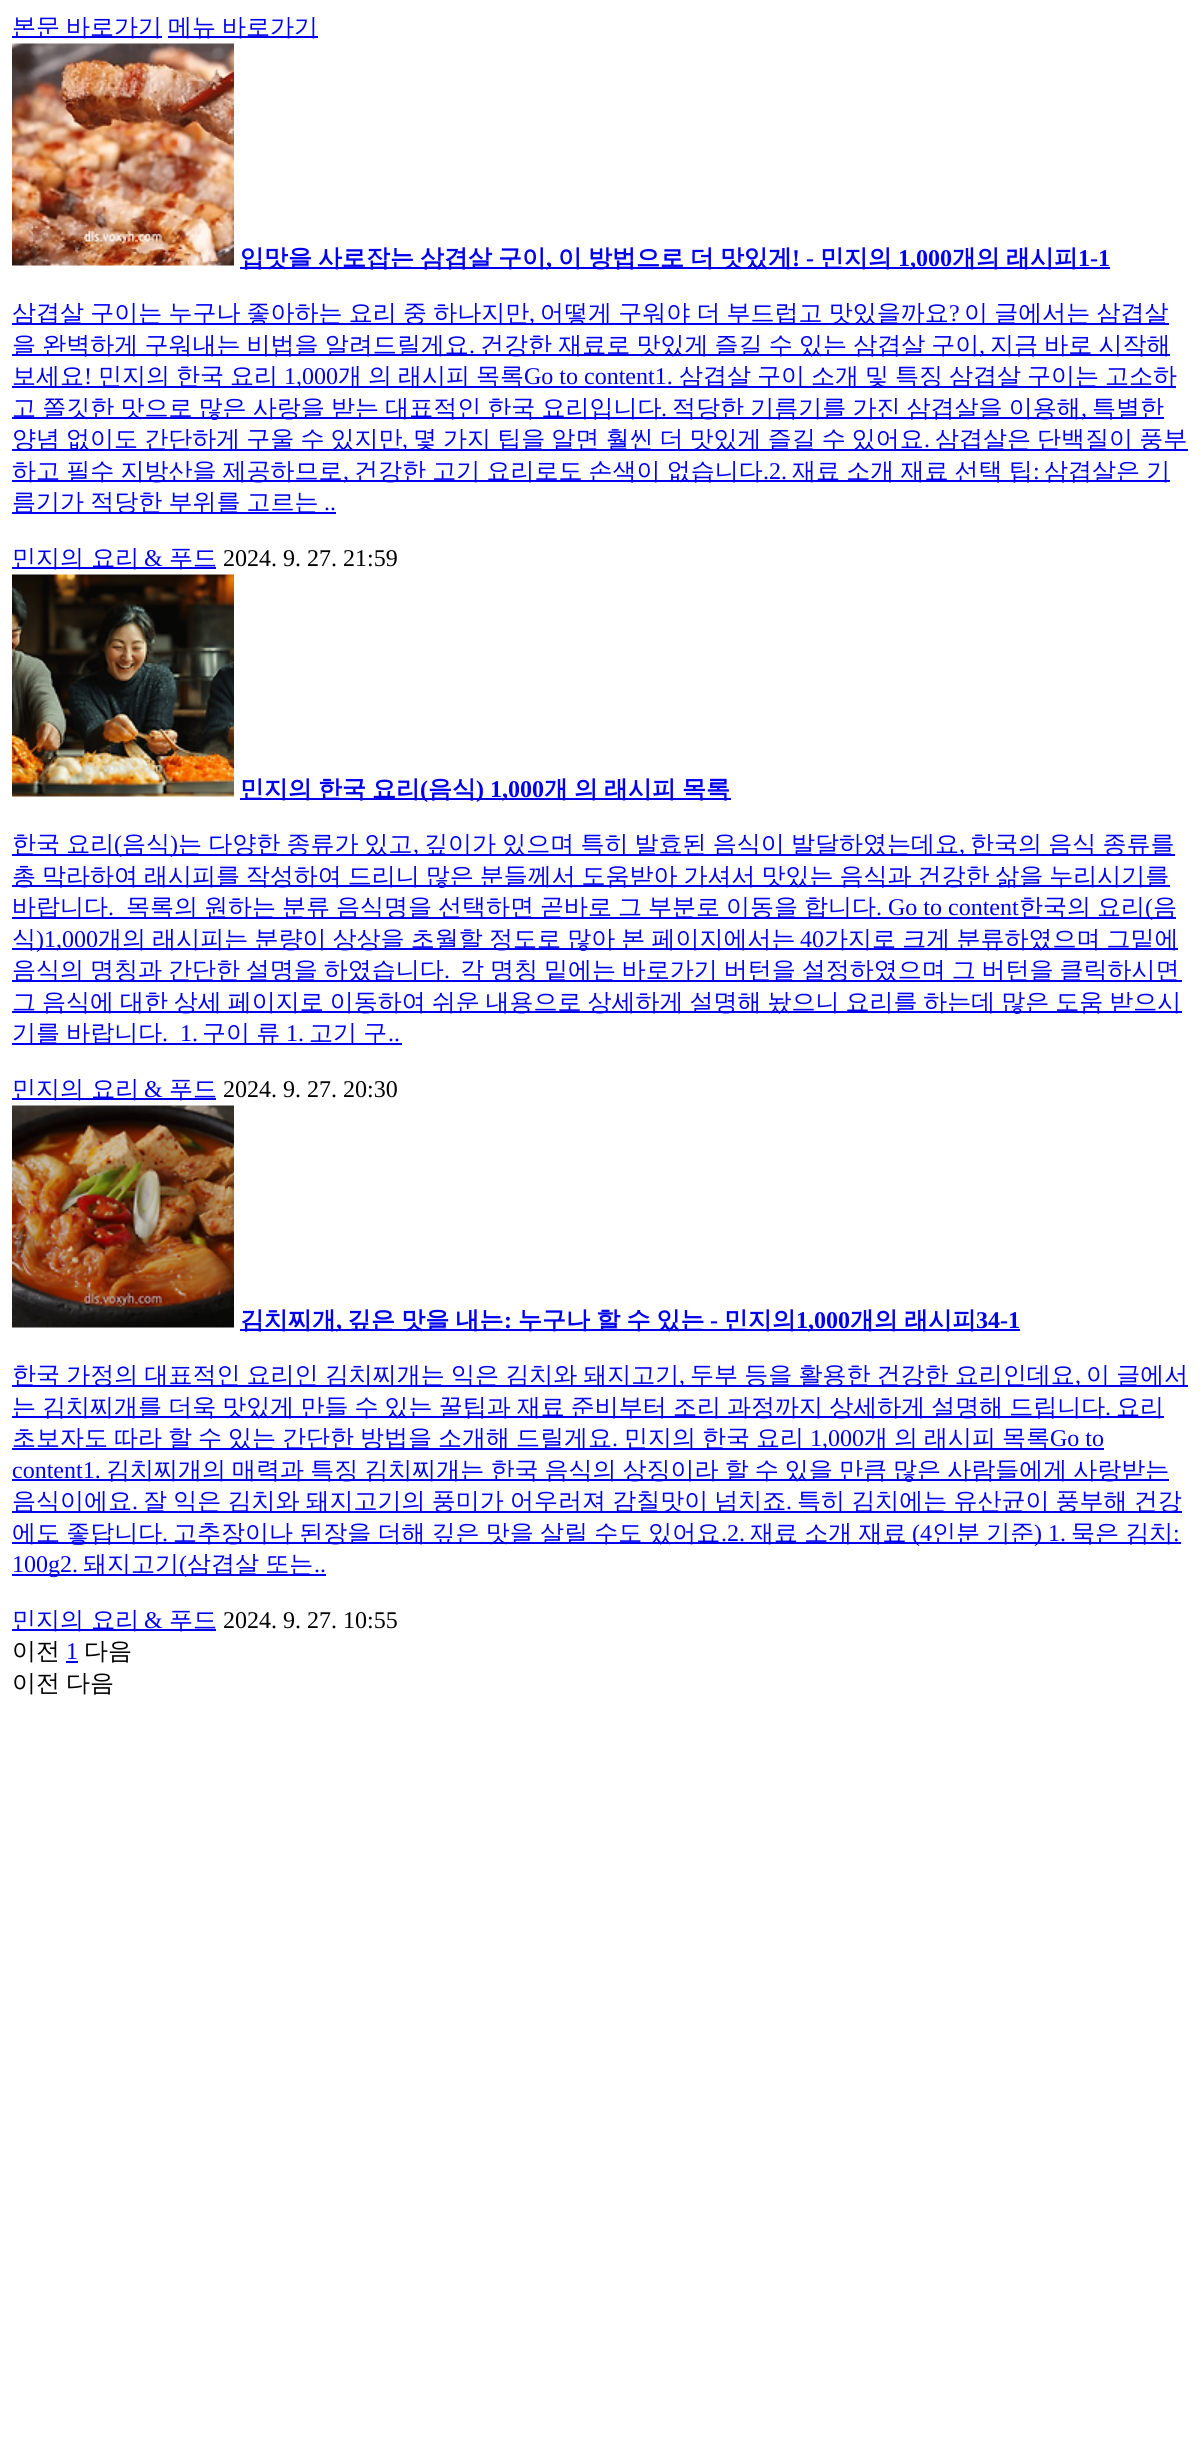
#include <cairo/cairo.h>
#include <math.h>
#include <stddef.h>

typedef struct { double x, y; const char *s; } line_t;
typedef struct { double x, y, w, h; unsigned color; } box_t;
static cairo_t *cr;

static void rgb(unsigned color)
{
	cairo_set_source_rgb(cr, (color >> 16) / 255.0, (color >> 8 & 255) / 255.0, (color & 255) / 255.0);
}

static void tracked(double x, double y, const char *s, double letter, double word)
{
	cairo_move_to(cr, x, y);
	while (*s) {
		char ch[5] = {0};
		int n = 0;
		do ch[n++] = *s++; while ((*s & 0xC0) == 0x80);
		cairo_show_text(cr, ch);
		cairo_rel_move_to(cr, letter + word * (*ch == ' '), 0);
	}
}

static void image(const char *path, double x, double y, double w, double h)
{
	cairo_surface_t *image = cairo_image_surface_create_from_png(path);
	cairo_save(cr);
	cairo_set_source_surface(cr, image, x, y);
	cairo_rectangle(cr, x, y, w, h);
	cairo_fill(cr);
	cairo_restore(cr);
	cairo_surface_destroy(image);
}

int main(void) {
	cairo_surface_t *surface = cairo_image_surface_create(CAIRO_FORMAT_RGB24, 1203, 2462);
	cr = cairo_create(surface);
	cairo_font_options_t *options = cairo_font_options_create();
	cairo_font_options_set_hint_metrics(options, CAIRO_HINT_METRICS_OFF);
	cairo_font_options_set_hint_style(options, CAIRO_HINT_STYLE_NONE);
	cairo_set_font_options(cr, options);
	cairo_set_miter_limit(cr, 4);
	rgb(0xffffff);
	cairo_paint(cr);
	rgb(0x0000ee);
	cairo_rectangle(cr, 12, 36, 150, 2);
	cairo_fill(cr);
	cairo_rectangle(cr, 168, 36, 150, 2);
	cairo_fill(cr);
	image("img/1.png", 12, 43, 222, 223);
	{
		static const box_t items[] = {
			{240, 267, 870, 2, 0x0000ee},
			{12, 323, 1157, 2, 0x0000ee},
			{12, 354, 1158, 2, 0x0000ee},
			{12, 386, 1164, 2, 0x0000ee},
			{12, 417, 1152, 2, 0x0000ee},
			{12, 449, 1176, 2, 0x0000ee},
			{12, 480, 1158, 2, 0x0000ee},
			{12, 512, 324, 2, 0x0000ee},
			{12, 567, 204, 2, 0x0000ee},
		};
		for (size_t i = 0; i < sizeof items / sizeof *items; i++) {
			rgb(items[i].color);
			cairo_rectangle(cr, items[i].x, items[i].y, items[i].w, items[i].h);
			cairo_fill(cr);
		}
	}
	image("img/2.png", 12, 574, 222, 223);
	{
		static const box_t items[] = {
			{240, 798, 491, 2, 0x0000ee},
			{12, 854, 1163, 2, 0x0000ee},
			{12, 885, 1158, 2, 0x0000ee},
			{12, 917, 1164, 2, 0x0000ee},
			{12, 948, 1166, 2, 0x0000ee},
			{12, 980, 1170, 2, 0x0000ee},
			{12, 1011, 1170, 2, 0x0000ee},
			{12, 1043, 390, 2, 0x0000ee},
			{12, 1098, 204, 2, 0x0000ee},
		};
		for (size_t i = 0; i < sizeof items / sizeof *items; i++) {
			rgb(items[i].color);
			cairo_rectangle(cr, items[i].x, items[i].y, items[i].w, items[i].h);
			cairo_fill(cr);
		}
	}
	image("img/3.png", 12, 1105, 222, 223);
	{
		static const box_t items[] = {
			{240, 1329, 780, 2, 0x0000ee},
			{12, 1385, 1176, 2, 0x0000ee},
			{12, 1416, 1152, 2, 0x0000ee},
			{12, 1448, 1092, 2, 0x0000ee},
			{12, 1479, 1157, 2, 0x0000ee},
			{12, 1511, 1170, 2, 0x0000ee},
			{12, 1542, 1169, 2, 0x0000ee},
			{12, 1574, 314, 2, 0x0000ee},
			{12, 1629, 204, 2, 0x0000ee},
			{66, 1661, 12, 2, 0x0000ee},
		};
		for (size_t i = 0; i < sizeof items / sizeof *items; i++) {
			rgb(items[i].color);
			cairo_rectangle(cr, items[i].x, items[i].y, items[i].w, items[i].h);
			cairo_fill(cr);
		}
	}
	cairo_select_font_face(cr, "WenQuanYi Zen Hei Medium", CAIRO_FONT_SLANT_NORMAL, CAIRO_FONT_WEIGHT_NORMAL);
	cairo_set_font_size(cr, 24);
	tracked(12, 35, "본문 바로가기", 0, -1.25);
	tracked(168, 35, "메뉴 바로가기", 0, -1.25);
	cairo_select_font_face(cr, "WenQuanYi Zen Hei", CAIRO_FONT_SLANT_NORMAL, CAIRO_FONT_WEIGHT_BOLD);
	{
		static const line_t items[] = {
			{240, 266, "입맛을"},
			{318, 266, "사로잡는"},
			{420, 266, "삼겹살"},
			{498, 266, "구이"},
		};
		for (size_t i = 0; i < sizeof items / sizeof *items; i++) {
			cairo_move_to(cr, items[i].x, items[i].y);
			cairo_show_text(cr, items[i].s);
		}
	}
	cairo_select_font_face(cr, "Liberation Serif", CAIRO_FONT_SLANT_NORMAL, CAIRO_FONT_WEIGHT_BOLD);
	cairo_move_to(cr, 546, 266);
	cairo_show_text(cr, ",");
	cairo_select_font_face(cr, "WenQuanYi Zen Hei", CAIRO_FONT_SLANT_NORMAL, CAIRO_FONT_WEIGHT_BOLD);
	{
		static const line_t items[] = {
			{558, 266, "이"},
			{588, 266, "방법으로"},
			{690, 266, "더"},
			{720, 266, "맛있게"},
		};
		for (size_t i = 0; i < sizeof items / sizeof *items; i++) {
			cairo_move_to(cr, items[i].x, items[i].y);
			cairo_show_text(cr, items[i].s);
		}
	}
	cairo_select_font_face(cr, "Liberation Serif", CAIRO_FONT_SLANT_NORMAL, CAIRO_FONT_WEIGHT_BOLD);
	cairo_move_to(cr, 792, 266);
	cairo_show_text(cr, "! -");
	cairo_select_font_face(cr, "WenQuanYi Zen Hei", CAIRO_FONT_SLANT_NORMAL, CAIRO_FONT_WEIGHT_BOLD);
	cairo_move_to(cr, 820, 266);
	cairo_show_text(cr, "민지의");
	cairo_select_font_face(cr, "Liberation Serif", CAIRO_FONT_SLANT_NORMAL, CAIRO_FONT_WEIGHT_BOLD);
	cairo_move_to(cr, 898, 266);
	cairo_show_text(cr, "1,000");
	cairo_select_font_face(cr, "WenQuanYi Zen Hei", CAIRO_FONT_SLANT_NORMAL, CAIRO_FONT_WEIGHT_BOLD);
	cairo_move_to(cr, 952, 266);
	cairo_show_text(cr, "개의");
	cairo_move_to(cr, 1006, 266);
	cairo_show_text(cr, "래시피");
	cairo_select_font_face(cr, "Liberation Serif", CAIRO_FONT_SLANT_NORMAL, CAIRO_FONT_WEIGHT_BOLD);
	cairo_move_to(cr, 1078, 266);
	cairo_show_text(cr, "1-1");
	cairo_select_font_face(cr, "WenQuanYi Zen Hei Medium", CAIRO_FONT_SLANT_NORMAL, CAIRO_FONT_WEIGHT_NORMAL);
	tracked(12, 321, "삼겹살 구이는 누구나 좋아하는 요리 중 하나지만", 0, -1);
	cairo_select_font_face(cr, "Liberation Serif", CAIRO_FONT_SLANT_NORMAL, CAIRO_FONT_WEIGHT_NORMAL);
	cairo_move_to(cr, 529, 321);
	cairo_show_text(cr, ",");
	cairo_select_font_face(cr, "WenQuanYi Zen Hei Medium", CAIRO_FONT_SLANT_NORMAL, CAIRO_FONT_WEIGHT_NORMAL);
	tracked(540, 321, "어떻게 구워야 더 부드럽고 맛있을까요", 0, -1);
	cairo_select_font_face(cr, "Liberation Serif", CAIRO_FONT_SLANT_NORMAL, CAIRO_FONT_WEIGHT_NORMAL);
	cairo_move_to(cr, 949, 321);
	cairo_show_text(cr, "?");
	cairo_select_font_face(cr, "WenQuanYi Zen Hei Medium", CAIRO_FONT_SLANT_NORMAL, CAIRO_FONT_WEIGHT_NORMAL);
	tracked(964, 321, "이 글에서는 삼겹살", 0, -1);
	tracked(12, 353, "을 완벽하게 구워내는 비법을 알려드릴게요", 0, -1);
	cairo_select_font_face(cr, "Liberation Serif", CAIRO_FONT_SLANT_NORMAL, CAIRO_FONT_WEIGHT_NORMAL);
	cairo_move_to(cr, 469, 353);
	cairo_show_text(cr, ".");
	cairo_select_font_face(cr, "WenQuanYi Zen Hei Medium", CAIRO_FONT_SLANT_NORMAL, CAIRO_FONT_WEIGHT_NORMAL);
	tracked(480, 353, "건강한 재료로 맛있게 즐길 수 있는 삼겹살 구이", 0, -1);
	cairo_select_font_face(cr, "Liberation Serif", CAIRO_FONT_SLANT_NORMAL, CAIRO_FONT_WEIGHT_NORMAL);
	cairo_move_to(cr, 979, 353);
	cairo_show_text(cr, ",");
	cairo_select_font_face(cr, "WenQuanYi Zen Hei Medium", CAIRO_FONT_SLANT_NORMAL, CAIRO_FONT_WEIGHT_NORMAL);
	tracked(990, 353, "지금 바로 시작해", 0, -1);
	cairo_move_to(cr, 12, 384);
	cairo_show_text(cr, "보세요");
	cairo_select_font_face(cr, "Liberation Serif", CAIRO_FONT_SLANT_NORMAL, CAIRO_FONT_WEIGHT_NORMAL);
	cairo_move_to(cr, 84, 384);
	cairo_show_text(cr, "!");
	cairo_select_font_face(cr, "WenQuanYi Zen Hei Medium", CAIRO_FONT_SLANT_NORMAL, CAIRO_FONT_WEIGHT_NORMAL);
	{
		static const line_t items[] = {
			{98, 384, "민지의"},
			{176, 384, "한국"},
			{230, 384, "요리"},
		};
		for (size_t i = 0; i < sizeof items / sizeof *items; i++) {
			cairo_move_to(cr, items[i].x, items[i].y);
			cairo_show_text(cr, items[i].s);
		}
	}
	cairo_select_font_face(cr, "Liberation Serif", CAIRO_FONT_SLANT_NORMAL, CAIRO_FONT_WEIGHT_NORMAL);
	cairo_move_to(cr, 284, 384);
	cairo_show_text(cr, "1,000");
	cairo_select_font_face(cr, "WenQuanYi Zen Hei Medium", CAIRO_FONT_SLANT_NORMAL, CAIRO_FONT_WEIGHT_NORMAL);
	{
		static const line_t items[] = {
			{338, 384, "개"},
			{368, 384, "의"},
			{398, 384, "래시피"},
			{476, 384, "목록"},
		};
		for (size_t i = 0; i < sizeof items / sizeof *items; i++) {
			cairo_move_to(cr, items[i].x, items[i].y);
			cairo_show_text(cr, items[i].s);
		}
	}
	cairo_select_font_face(cr, "Liberation Serif", CAIRO_FONT_SLANT_NORMAL, CAIRO_FONT_WEIGHT_NORMAL);
	cairo_move_to(cr, 524, 384);
	cairo_show_text(cr, "Go to content1.");
	cairo_select_font_face(cr, "WenQuanYi Zen Hei Medium", CAIRO_FONT_SLANT_NORMAL, CAIRO_FONT_WEIGHT_NORMAL);
	{
		static const line_t items[] = {
			{679, 384, "삼겹살"},
			{757, 384, "구이"},
			{811, 384, "소개"},
			{865, 384, "및"},
			{895, 384, "특징"},
			{949, 384, "삼겹살"},
			{1027, 384, "구이는"},
			{1105, 384, "고소하"},
		};
		for (size_t i = 0; i < sizeof items / sizeof *items; i++) {
			cairo_move_to(cr, items[i].x, items[i].y);
			cairo_show_text(cr, items[i].s);
		}
	}
	tracked(12, 416, "고 쫄깃한 맛으로 많은 사랑을 받는 대표적인 한국 요리입니다", 0, -1);
	cairo_select_font_face(cr, "Liberation Serif", CAIRO_FONT_SLANT_NORMAL, CAIRO_FONT_WEIGHT_NORMAL);
	cairo_move_to(cr, 661, 416);
	cairo_show_text(cr, ".");
	cairo_select_font_face(cr, "WenQuanYi Zen Hei Medium", CAIRO_FONT_SLANT_NORMAL, CAIRO_FONT_WEIGHT_NORMAL);
	tracked(672, 416, "적당한 기름기를 가진 삼겹살을 이용해", 0, -1);
	cairo_select_font_face(cr, "Liberation Serif", CAIRO_FONT_SLANT_NORMAL, CAIRO_FONT_WEIGHT_NORMAL);
	cairo_move_to(cr, 1081, 416);
	cairo_show_text(cr, ",");
	cairo_select_font_face(cr, "WenQuanYi Zen Hei Medium", CAIRO_FONT_SLANT_NORMAL, CAIRO_FONT_WEIGHT_NORMAL);
	cairo_move_to(cr, 1092, 416);
	cairo_show_text(cr, "특별한");
	tracked(12, 447, "양념 없이도 간단하게 구울 수 있지만", 0, -1.1);
	cairo_select_font_face(cr, "Liberation Serif", CAIRO_FONT_SLANT_NORMAL, CAIRO_FONT_WEIGHT_NORMAL);
	cairo_move_to(cr, 402, 447);
	cairo_show_text(cr, ",");
	cairo_select_font_face(cr, "WenQuanYi Zen Hei Medium", CAIRO_FONT_SLANT_NORMAL, CAIRO_FONT_WEIGHT_NORMAL);
	tracked(413, 447, "몇 가지 팁을 알면 훨씬 더 맛있게 즐길 수 있어요", 0, -1.1);
	cairo_select_font_face(cr, "Liberation Serif", CAIRO_FONT_SLANT_NORMAL, CAIRO_FONT_WEIGHT_NORMAL);
	cairo_move_to(cr, 924, 447);
	cairo_show_text(cr, ".");
	cairo_select_font_face(cr, "WenQuanYi Zen Hei Medium", CAIRO_FONT_SLANT_NORMAL, CAIRO_FONT_WEIGHT_NORMAL);
	tracked(935, 447, "삼겹살은 단백질이 풍부", 0, -1.1);
	tracked(12, 479, "하고 필수 지방산을 제공하므로", 0, -1);
	cairo_select_font_face(cr, "Liberation Serif", CAIRO_FONT_SLANT_NORMAL, CAIRO_FONT_WEIGHT_NORMAL);
	cairo_move_to(cr, 343, 479);
	cairo_show_text(cr, ",");
	cairo_select_font_face(cr, "WenQuanYi Zen Hei Medium", CAIRO_FONT_SLANT_NORMAL, CAIRO_FONT_WEIGHT_NORMAL);
	tracked(354, 479, "건강한 고기 요리로도 손색이 없습니다", 0, -1);
	cairo_select_font_face(cr, "Liberation Serif", CAIRO_FONT_SLANT_NORMAL, CAIRO_FONT_WEIGHT_NORMAL);
	cairo_move_to(cr, 763, 479);
	cairo_show_text(cr, ".2.");
	cairo_select_font_face(cr, "WenQuanYi Zen Hei Medium", CAIRO_FONT_SLANT_NORMAL, CAIRO_FONT_WEIGHT_NORMAL);
	tracked(792, 479, "재료 소개 재료 선택 팁", 0, -1);
	cairo_select_font_face(cr, "Liberation Serif", CAIRO_FONT_SLANT_NORMAL, CAIRO_FONT_WEIGHT_NORMAL);
	cairo_move_to(cr, 1033, 479);
	cairo_show_text(cr, ":");
	cairo_select_font_face(cr, "WenQuanYi Zen Hei Medium", CAIRO_FONT_SLANT_NORMAL, CAIRO_FONT_WEIGHT_NORMAL);
	tracked(1044, 479, "삼겹살은 기", 0, -1);
	tracked(12, 510, "름기가 적당한 부위를 고르는", 0, -1);
	cairo_select_font_face(cr, "Liberation Serif", CAIRO_FONT_SLANT_NORMAL, CAIRO_FONT_WEIGHT_NORMAL);
	cairo_move_to(cr, 324, 510);
	cairo_show_text(cr, "..");
	cairo_select_font_face(cr, "WenQuanYi Zen Hei Medium", CAIRO_FONT_SLANT_NORMAL, CAIRO_FONT_WEIGHT_NORMAL);
	cairo_move_to(cr, 12, 566);
	cairo_show_text(cr, "민지의 요리");
	cairo_select_font_face(cr, "Liberation Serif", CAIRO_FONT_SLANT_NORMAL, CAIRO_FONT_WEIGHT_NORMAL);
	cairo_move_to(cr, 144, 566);
	cairo_show_text(cr, "&");
	cairo_select_font_face(cr, "WenQuanYi Zen Hei Medium", CAIRO_FONT_SLANT_NORMAL, CAIRO_FONT_WEIGHT_NORMAL);
	cairo_move_to(cr, 169, 566);
	cairo_show_text(cr, "푸드");
	cairo_select_font_face(cr, "Liberation Serif", CAIRO_FONT_SLANT_NORMAL, CAIRO_FONT_WEIGHT_NORMAL);
	rgb(0x000000);
	cairo_move_to(cr, 223, 566);
	cairo_show_text(cr, "2024. 9. 27. 21:59");
	cairo_select_font_face(cr, "WenQuanYi Zen Hei", CAIRO_FONT_SLANT_NORMAL, CAIRO_FONT_WEIGHT_BOLD);
	rgb(0x0000ee);
	{
		static const line_t items[] = {
			{240, 797, "민지의"},
			{318, 797, "한국"},
			{372, 797, "요리"},
		};
		for (size_t i = 0; i < sizeof items / sizeof *items; i++) {
			cairo_move_to(cr, items[i].x, items[i].y);
			cairo_show_text(cr, items[i].s);
		}
	}
	cairo_select_font_face(cr, "Liberation Serif", CAIRO_FONT_SLANT_NORMAL, CAIRO_FONT_WEIGHT_BOLD);
	cairo_move_to(cr, 420, 797);
	cairo_show_text(cr, "(");
	cairo_select_font_face(cr, "WenQuanYi Zen Hei", CAIRO_FONT_SLANT_NORMAL, CAIRO_FONT_WEIGHT_BOLD);
	cairo_move_to(cr, 428, 797);
	cairo_show_text(cr, "음식");
	cairo_select_font_face(cr, "Liberation Serif", CAIRO_FONT_SLANT_NORMAL, CAIRO_FONT_WEIGHT_BOLD);
	cairo_move_to(cr, 476, 797);
	cairo_show_text(cr, ") 1,000");
	cairo_select_font_face(cr, "WenQuanYi Zen Hei", CAIRO_FONT_SLANT_NORMAL, CAIRO_FONT_WEIGHT_BOLD);
	{
		static const line_t items[] = {
			{544, 797, "개"},
			{574, 797, "의"},
			{604, 797, "래시피"},
			{682, 797, "목록"},
		};
		for (size_t i = 0; i < sizeof items / sizeof *items; i++) {
			cairo_move_to(cr, items[i].x, items[i].y);
			cairo_show_text(cr, items[i].s);
		}
	}
	cairo_select_font_face(cr, "WenQuanYi Zen Hei Medium", CAIRO_FONT_SLANT_NORMAL, CAIRO_FONT_WEIGHT_NORMAL);
	tracked(12, 852, "한국 요리", 0, -1);
	cairo_select_font_face(cr, "Liberation Serif", CAIRO_FONT_SLANT_NORMAL, CAIRO_FONT_WEIGHT_NORMAL);
	cairo_move_to(cr, 114, 852);
	cairo_show_text(cr, "(");
	cairo_select_font_face(cr, "WenQuanYi Zen Hei Medium", CAIRO_FONT_SLANT_NORMAL, CAIRO_FONT_WEIGHT_NORMAL);
	cairo_move_to(cr, 122, 852);
	cairo_show_text(cr, "음식");
	cairo_select_font_face(cr, "Liberation Serif", CAIRO_FONT_SLANT_NORMAL, CAIRO_FONT_WEIGHT_NORMAL);
	cairo_move_to(cr, 170, 852);
	cairo_show_text(cr, ")");
	cairo_select_font_face(cr, "WenQuanYi Zen Hei Medium", CAIRO_FONT_SLANT_NORMAL, CAIRO_FONT_WEIGHT_NORMAL);
	tracked(178, 852, "는 다양한 종류가 있고", 0, -1);
	cairo_select_font_face(cr, "Liberation Serif", CAIRO_FONT_SLANT_NORMAL, CAIRO_FONT_WEIGHT_NORMAL);
	cairo_move_to(cr, 413, 852);
	cairo_show_text(cr, ",");
	cairo_select_font_face(cr, "WenQuanYi Zen Hei Medium", CAIRO_FONT_SLANT_NORMAL, CAIRO_FONT_WEIGHT_NORMAL);
	tracked(424, 852, "깊이가 있으며 특히 발효된 음식이 발달하였는데요", 0, -1);
	cairo_select_font_face(cr, "Liberation Serif", CAIRO_FONT_SLANT_NORMAL, CAIRO_FONT_WEIGHT_NORMAL);
	cairo_move_to(cr, 959, 852);
	cairo_show_text(cr, ",");
	cairo_select_font_face(cr, "WenQuanYi Zen Hei Medium", CAIRO_FONT_SLANT_NORMAL, CAIRO_FONT_WEIGHT_NORMAL);
	tracked(970, 852, "한국의 음식 종류를", 0, -1);
	tracked(12, 884, "총 막라하여 래시피를 작성하여 드리니 많은 분들께서 도움받아 가셔서 맛있는 음식과 건강한 삶을 누리시기를", 0, -1.25);
	cairo_move_to(cr, 12, 915);
	cairo_show_text(cr, "바랍니다");
	cairo_select_font_face(cr, "Liberation Serif", CAIRO_FONT_SLANT_NORMAL, CAIRO_FONT_WEIGHT_NORMAL);
	cairo_move_to(cr, 108, 915);
	cairo_show_text(cr, ".");
	cairo_select_font_face(cr, "WenQuanYi Zen Hei Medium", CAIRO_FONT_SLANT_NORMAL, CAIRO_FONT_WEIGHT_NORMAL);
	{
		static const line_t items[] = {
			{126, 915, "목록의"},
			{204, 915, "원하는"},
			{282, 915, "분류"},
			{336, 915, "음식명을"},
			{438, 915, "선택하면"},
			{540, 915, "곧바로"},
			{618, 915, "그"},
			{648, 915, "부분로"},
			{726, 915, "이동을"},
			{804, 915, "합니다"},
		};
		for (size_t i = 0; i < sizeof items / sizeof *items; i++) {
			cairo_move_to(cr, items[i].x, items[i].y);
			cairo_show_text(cr, items[i].s);
		}
	}
	cairo_select_font_face(cr, "Liberation Serif", CAIRO_FONT_SLANT_NORMAL, CAIRO_FONT_WEIGHT_NORMAL);
	cairo_move_to(cr, 876, 915);
	cairo_show_text(cr, ". Go to content");
	cairo_select_font_face(cr, "WenQuanYi Zen Hei Medium", CAIRO_FONT_SLANT_NORMAL, CAIRO_FONT_WEIGHT_NORMAL);
	cairo_move_to(cr, 1019, 915);
	cairo_show_text(cr, "한국의");
	cairo_move_to(cr, 1097, 915);
	cairo_show_text(cr, "요리");
	cairo_select_font_face(cr, "Liberation Serif", CAIRO_FONT_SLANT_NORMAL, CAIRO_FONT_WEIGHT_NORMAL);
	cairo_move_to(cr, 1145, 915);
	cairo_show_text(cr, "(");
	cairo_select_font_face(cr, "WenQuanYi Zen Hei Medium", CAIRO_FONT_SLANT_NORMAL, CAIRO_FONT_WEIGHT_NORMAL);
	cairo_move_to(cr, 1153, 915);
	cairo_show_text(cr, "음");
	cairo_move_to(cr, 12, 947);
	cairo_show_text(cr, "식");
	cairo_select_font_face(cr, "Liberation Serif", CAIRO_FONT_SLANT_NORMAL, CAIRO_FONT_WEIGHT_NORMAL);
	cairo_move_to(cr, 36, 947);
	cairo_show_text(cr, ")1,000");
	cairo_select_font_face(cr, "WenQuanYi Zen Hei Medium", CAIRO_FONT_SLANT_NORMAL, CAIRO_FONT_WEIGHT_NORMAL);
	tracked(98, 947, "개의 래시피는 분량이 상상을 초월할 정도로 많아 본 페이지에서는", 0, -1);
	cairo_select_font_face(cr, "Liberation Serif", CAIRO_FONT_SLANT_NORMAL, CAIRO_FONT_WEIGHT_NORMAL);
	cairo_move_to(cr, 800, 947);
	cairo_show_text(cr, "40");
	cairo_select_font_face(cr, "WenQuanYi Zen Hei Medium", CAIRO_FONT_SLANT_NORMAL, CAIRO_FONT_WEIGHT_NORMAL);
	tracked(824, 947, "가지로 크게 분류하였으며 그밑에", 0, -1);
	tracked(12, 978, "음식의 명칭과 간단한 설명을 하였습니다", 0, -1.25);
	cairo_select_font_face(cr, "Liberation Serif", CAIRO_FONT_SLANT_NORMAL, CAIRO_FONT_WEIGHT_NORMAL);
	cairo_move_to(cr, 444, 978);
	cairo_show_text(cr, ".");
	cairo_select_font_face(cr, "WenQuanYi Zen Hei Medium", CAIRO_FONT_SLANT_NORMAL, CAIRO_FONT_WEIGHT_NORMAL);
	tracked(460, 978, "각 명칭 밑에는 바로가기 버턴을 설정하였으며 그 버턴을 클릭하시면", 0, -1.25);
	tracked(12, 1010, "그 음식에 대한 상세 페이지로 이동하여 쉬운 내용으로 상세하게 설명해 놨으니 요리를 하는데 많은 도움 받으시", 0, -1.25);
	tracked(12, 1041, "기를 바랍니다", 0, -1);
	cairo_select_font_face(cr, "Liberation Serif", CAIRO_FONT_SLANT_NORMAL, CAIRO_FONT_WEIGHT_NORMAL);
	cairo_move_to(cr, 162, 1041);
	cairo_show_text(cr, ".  1.");
	cairo_select_font_face(cr, "WenQuanYi Zen Hei Medium", CAIRO_FONT_SLANT_NORMAL, CAIRO_FONT_WEIGHT_NORMAL);
	tracked(202, 1041, "구이 류", 0, -1);
	cairo_select_font_face(cr, "Liberation Serif", CAIRO_FONT_SLANT_NORMAL, CAIRO_FONT_WEIGHT_NORMAL);
	cairo_move_to(cr, 286, 1041);
	cairo_show_text(cr, "1.");
	cairo_select_font_face(cr, "WenQuanYi Zen Hei Medium", CAIRO_FONT_SLANT_NORMAL, CAIRO_FONT_WEIGHT_NORMAL);
	tracked(309, 1041, "고기 구", 0, -1);
	cairo_select_font_face(cr, "Liberation Serif", CAIRO_FONT_SLANT_NORMAL, CAIRO_FONT_WEIGHT_NORMAL);
	cairo_move_to(cr, 388, 1041);
	cairo_show_text(cr, "..");
	cairo_select_font_face(cr, "WenQuanYi Zen Hei Medium", CAIRO_FONT_SLANT_NORMAL, CAIRO_FONT_WEIGHT_NORMAL);
	cairo_move_to(cr, 12, 1097);
	cairo_show_text(cr, "민지의 요리");
	cairo_select_font_face(cr, "Liberation Serif", CAIRO_FONT_SLANT_NORMAL, CAIRO_FONT_WEIGHT_NORMAL);
	cairo_move_to(cr, 144, 1097);
	cairo_show_text(cr, "&");
	cairo_select_font_face(cr, "WenQuanYi Zen Hei Medium", CAIRO_FONT_SLANT_NORMAL, CAIRO_FONT_WEIGHT_NORMAL);
	cairo_move_to(cr, 169, 1097);
	cairo_show_text(cr, "푸드");
	cairo_select_font_face(cr, "Liberation Serif", CAIRO_FONT_SLANT_NORMAL, CAIRO_FONT_WEIGHT_NORMAL);
	rgb(0x000000);
	cairo_move_to(cr, 223, 1097);
	cairo_show_text(cr, "2024. 9. 27. 20:30");
	cairo_select_font_face(cr, "WenQuanYi Zen Hei", CAIRO_FONT_SLANT_NORMAL, CAIRO_FONT_WEIGHT_BOLD);
	rgb(0x0000ee);
	cairo_move_to(cr, 240, 1328);
	cairo_show_text(cr, "김치찌개");
	tracked(347, 1328, "깊은 맛을 내는", 0, -1);
	cairo_select_font_face(cr, "Liberation Serif", CAIRO_FONT_SLANT_NORMAL, CAIRO_FONT_WEIGHT_BOLD);
	cairo_move_to(cr, 504, 1328);
	cairo_show_text(cr, ":");
	cairo_select_font_face(cr, "WenQuanYi Zen Hei", CAIRO_FONT_SLANT_NORMAL, CAIRO_FONT_WEIGHT_BOLD);
	tracked(518, 1328, "누구나 할 수 있는", 0, -1);
	cairo_select_font_face(cr, "Liberation Serif", CAIRO_FONT_SLANT_NORMAL, CAIRO_FONT_WEIGHT_BOLD);
	cairo_move_to(cr, 710, 1328);
	cairo_show_text(cr, "-");
	cairo_select_font_face(cr, "WenQuanYi Zen Hei", CAIRO_FONT_SLANT_NORMAL, CAIRO_FONT_WEIGHT_BOLD);
	cairo_move_to(cr, 724, 1328);
	cairo_show_text(cr, "민지의");
	cairo_select_font_face(cr, "Liberation Serif", CAIRO_FONT_SLANT_NORMAL, CAIRO_FONT_WEIGHT_BOLD);
	cairo_move_to(cr, 796, 1328);
	cairo_show_text(cr, "1,000");
	cairo_select_font_face(cr, "WenQuanYi Zen Hei", CAIRO_FONT_SLANT_NORMAL, CAIRO_FONT_WEIGHT_BOLD);
	tracked(850, 1328, "개의 래시피", 0, -1);
	cairo_select_font_face(cr, "Liberation Serif", CAIRO_FONT_SLANT_NORMAL, CAIRO_FONT_WEIGHT_BOLD);
	cairo_move_to(cr, 976, 1328);
	cairo_show_text(cr, "34-1");
	cairo_move_to(cr, 336, 1328);
	cairo_show_text(cr, ",");
	cairo_select_font_face(cr, "WenQuanYi Zen Hei Medium", CAIRO_FONT_SLANT_NORMAL, CAIRO_FONT_WEIGHT_NORMAL);
	tracked(12, 1383, "한국 가정의 대표적인 요리인 김치찌개는 익은 김치와 돼지고기", 0, -1);
	cairo_select_font_face(cr, "Liberation Serif", CAIRO_FONT_SLANT_NORMAL, CAIRO_FONT_WEIGHT_NORMAL);
	cairo_move_to(cr, 679, 1383);
	cairo_show_text(cr, ",");
	cairo_select_font_face(cr, "WenQuanYi Zen Hei Medium", CAIRO_FONT_SLANT_NORMAL, CAIRO_FONT_WEIGHT_NORMAL);
	tracked(690, 1383, "두부 등을 활용한 건강한 요리인데요", 0, -1);
	cairo_select_font_face(cr, "Liberation Serif", CAIRO_FONT_SLANT_NORMAL, CAIRO_FONT_WEIGHT_NORMAL);
	cairo_move_to(cr, 1075, 1383);
	cairo_show_text(cr, ",");
	cairo_select_font_face(cr, "WenQuanYi Zen Hei Medium", CAIRO_FONT_SLANT_NORMAL, CAIRO_FONT_WEIGHT_NORMAL);
	tracked(1086, 1383, "이 글에서", 0, -1);
	tracked(12, 1415, "는 김치찌개를 더욱 맛있게 만들 수 있는 꿀팁과 재료 준비부터 조리 과정까지 상세하게 설명해 드립니다", 0, -1.1);
	cairo_select_font_face(cr, "Liberation Serif", CAIRO_FONT_SLANT_NORMAL, CAIRO_FONT_WEIGHT_NORMAL);
	cairo_move_to(cr, 1105, 1415);
	cairo_show_text(cr, ".");
	cairo_select_font_face(cr, "WenQuanYi Zen Hei Medium", CAIRO_FONT_SLANT_NORMAL, CAIRO_FONT_WEIGHT_NORMAL);
	{
		static const line_t items[] = {
			{1116, 1415, "요리"},
			{12, 1446, "초보자도"},
			{114, 1446, "따라"},
			{168, 1446, "할"},
			{198, 1446, "수"},
			{228, 1446, "있는"},
			{282, 1446, "간단한"},
			{360, 1446, "방법을"},
			{438, 1446, "소개해"},
			{516, 1446, "드릴게요"},
		};
		for (size_t i = 0; i < sizeof items / sizeof *items; i++) {
			cairo_move_to(cr, items[i].x, items[i].y);
			cairo_show_text(cr, items[i].s);
		}
	}
	cairo_select_font_face(cr, "Liberation Serif", CAIRO_FONT_SLANT_NORMAL, CAIRO_FONT_WEIGHT_NORMAL);
	cairo_move_to(cr, 612, 1446);
	cairo_show_text(cr, ".");
	cairo_select_font_face(cr, "WenQuanYi Zen Hei Medium", CAIRO_FONT_SLANT_NORMAL, CAIRO_FONT_WEIGHT_NORMAL);
	{
		static const line_t items[] = {
			{624, 1446, "민지의"},
			{702, 1446, "한국"},
			{756, 1446, "요리"},
		};
		for (size_t i = 0; i < sizeof items / sizeof *items; i++) {
			cairo_move_to(cr, items[i].x, items[i].y);
			cairo_show_text(cr, items[i].s);
		}
	}
	cairo_select_font_face(cr, "Liberation Serif", CAIRO_FONT_SLANT_NORMAL, CAIRO_FONT_WEIGHT_NORMAL);
	cairo_move_to(cr, 810, 1446);
	cairo_show_text(cr, "1,000");
	cairo_select_font_face(cr, "WenQuanYi Zen Hei Medium", CAIRO_FONT_SLANT_NORMAL, CAIRO_FONT_WEIGHT_NORMAL);
	{
		static const line_t items[] = {
			{864, 1446, "개"},
			{894, 1446, "의"},
			{924, 1446, "래시피"},
			{1002, 1446, "목록"},
		};
		for (size_t i = 0; i < sizeof items / sizeof *items; i++) {
			cairo_move_to(cr, items[i].x, items[i].y);
			cairo_show_text(cr, items[i].s);
		}
	}
	cairo_select_font_face(cr, "Liberation Serif", CAIRO_FONT_SLANT_NORMAL, CAIRO_FONT_WEIGHT_NORMAL);
	cairo_move_to(cr, 1050, 1446);
	cairo_show_text(cr, "Go to");
	cairo_move_to(cr, 12, 1478);
	cairo_show_text(cr, "content1.");
	cairo_select_font_face(cr, "WenQuanYi Zen Hei Medium", CAIRO_FONT_SLANT_NORMAL, CAIRO_FONT_WEIGHT_NORMAL);
	tracked(106, 1478, "김치찌개의 매력과 특징 김치찌개는 한국 음식의 상징이라 할 수 있을 만큼 많은 사람들에게 사랑받는", 0, -1.1);
	cairo_move_to(cr, 12, 1509);
	cairo_show_text(cr, "음식이에요");
	cairo_select_font_face(cr, "Liberation Serif", CAIRO_FONT_SLANT_NORMAL, CAIRO_FONT_WEIGHT_NORMAL);
	cairo_move_to(cr, 132, 1509);
	cairo_show_text(cr, ".");
	cairo_select_font_face(cr, "WenQuanYi Zen Hei Medium", CAIRO_FONT_SLANT_NORMAL, CAIRO_FONT_WEIGHT_NORMAL);
	tracked(143, 1509, "잘 익은 김치와 돼지고기의 풍미가 어우러져 감칠맛이 넘치죠", 0, -1);
	cairo_select_font_face(cr, "Liberation Serif", CAIRO_FONT_SLANT_NORMAL, CAIRO_FONT_WEIGHT_NORMAL);
	cairo_move_to(cr, 786, 1509);
	cairo_show_text(cr, ".");
	cairo_select_font_face(cr, "WenQuanYi Zen Hei Medium", CAIRO_FONT_SLANT_NORMAL, CAIRO_FONT_WEIGHT_NORMAL);
	tracked(797, 1509, "특히 김치에는 유산균이 풍부해 건강", 0, -1);
	tracked(12, 1541, "에도 좋답니다", 0, -1);
	cairo_select_font_face(cr, "Liberation Serif", CAIRO_FONT_SLANT_NORMAL, CAIRO_FONT_WEIGHT_NORMAL);
	cairo_move_to(cr, 162, 1541);
	cairo_show_text(cr, ".");
	cairo_select_font_face(cr, "WenQuanYi Zen Hei Medium", CAIRO_FONT_SLANT_NORMAL, CAIRO_FONT_WEIGHT_NORMAL);
	tracked(173, 1541, "고추장이나 된장을 더해 깊은 맛을 살릴 수도 있어요", 0, -1);
	cairo_select_font_face(cr, "Liberation Serif", CAIRO_FONT_SLANT_NORMAL, CAIRO_FONT_WEIGHT_NORMAL);
	cairo_move_to(cr, 721, 1541);
	cairo_show_text(cr, ".2.");
	cairo_select_font_face(cr, "WenQuanYi Zen Hei Medium", CAIRO_FONT_SLANT_NORMAL, CAIRO_FONT_WEIGHT_NORMAL);
	tracked(750, 1541, "재료 소개 재료", 0, -1);
	cairo_select_font_face(cr, "Liberation Serif", CAIRO_FONT_SLANT_NORMAL, CAIRO_FONT_WEIGHT_NORMAL);
	cairo_move_to(cr, 912, 1541);
	cairo_show_text(cr, "(4");
	cairo_select_font_face(cr, "WenQuanYi Zen Hei Medium", CAIRO_FONT_SLANT_NORMAL, CAIRO_FONT_WEIGHT_NORMAL);
	tracked(932, 1541, "인분 기준", 0, -1);
	cairo_select_font_face(cr, "Liberation Serif", CAIRO_FONT_SLANT_NORMAL, CAIRO_FONT_WEIGHT_NORMAL);
	cairo_move_to(cr, 1034, 1541);
	cairo_show_text(cr, ") 1.");
	cairo_select_font_face(cr, "WenQuanYi Zen Hei Medium", CAIRO_FONT_SLANT_NORMAL, CAIRO_FONT_WEIGHT_NORMAL);
	tracked(1071, 1541, "묵은 김치", 0, -1);
	cairo_select_font_face(cr, "Liberation Serif", CAIRO_FONT_SLANT_NORMAL, CAIRO_FONT_WEIGHT_NORMAL);
	cairo_move_to(cr, 1173, 1541);
	cairo_show_text(cr, ":");
	cairo_move_to(cr, 12, 1572);
	cairo_show_text(cr, "100g2.");
	cairo_select_font_face(cr, "WenQuanYi Zen Hei Medium", CAIRO_FONT_SLANT_NORMAL, CAIRO_FONT_WEIGHT_NORMAL);
	cairo_move_to(cr, 83, 1572);
	cairo_show_text(cr, "돼지고기");
	cairo_select_font_face(cr, "Liberation Serif", CAIRO_FONT_SLANT_NORMAL, CAIRO_FONT_WEIGHT_NORMAL);
	cairo_move_to(cr, 179, 1572);
	cairo_show_text(cr, "(");
	cairo_select_font_face(cr, "WenQuanYi Zen Hei Medium", CAIRO_FONT_SLANT_NORMAL, CAIRO_FONT_WEIGHT_NORMAL);
	tracked(187, 1572, "삼겹살 또는", 0, -1);
	cairo_select_font_face(cr, "Liberation Serif", CAIRO_FONT_SLANT_NORMAL, CAIRO_FONT_WEIGHT_NORMAL);
	cairo_move_to(cr, 314, 1572);
	cairo_show_text(cr, "..");
	cairo_select_font_face(cr, "WenQuanYi Zen Hei Medium", CAIRO_FONT_SLANT_NORMAL, CAIRO_FONT_WEIGHT_NORMAL);
	cairo_move_to(cr, 12, 1628);
	cairo_show_text(cr, "민지의 요리");
	cairo_select_font_face(cr, "Liberation Serif", CAIRO_FONT_SLANT_NORMAL, CAIRO_FONT_WEIGHT_NORMAL);
	cairo_move_to(cr, 144, 1628);
	cairo_show_text(cr, "&");
	cairo_select_font_face(cr, "WenQuanYi Zen Hei Medium", CAIRO_FONT_SLANT_NORMAL, CAIRO_FONT_WEIGHT_NORMAL);
	cairo_move_to(cr, 169, 1628);
	cairo_show_text(cr, "푸드");
	cairo_select_font_face(cr, "Liberation Serif", CAIRO_FONT_SLANT_NORMAL, CAIRO_FONT_WEIGHT_NORMAL);
	rgb(0x000000);
	cairo_move_to(cr, 223, 1628);
	cairo_show_text(cr, "2024. 9. 27. 10:55");
	cairo_select_font_face(cr, "WenQuanYi Zen Hei Medium", CAIRO_FONT_SLANT_NORMAL, CAIRO_FONT_WEIGHT_NORMAL);
	cairo_move_to(cr, 12, 1659);
	cairo_show_text(cr, "이전");
	cairo_select_font_face(cr, "Liberation Serif", CAIRO_FONT_SLANT_NORMAL, CAIRO_FONT_WEIGHT_NORMAL);
	rgb(0x0000ee);
	cairo_move_to(cr, 66, 1659);
	cairo_show_text(cr, "1");
	cairo_select_font_face(cr, "WenQuanYi Zen Hei Medium", CAIRO_FONT_SLANT_NORMAL, CAIRO_FONT_WEIGHT_NORMAL);
	rgb(0x000000);
	{
		static const line_t items[] = {
			{84, 1659, "다음"},
			{12, 1691, "이전"},
			{66, 1691, "다음"},
		};
		for (size_t i = 0; i < sizeof items / sizeof *items; i++) {
			cairo_move_to(cr, items[i].x, items[i].y);
			cairo_show_text(cr, items[i].s);
		}
	}
	cairo_surface_write_to_png(surface, "page.png");
	cairo_font_options_destroy(options);
	cairo_destroy(cr);
	cairo_surface_destroy(surface);
	return 0;
}
